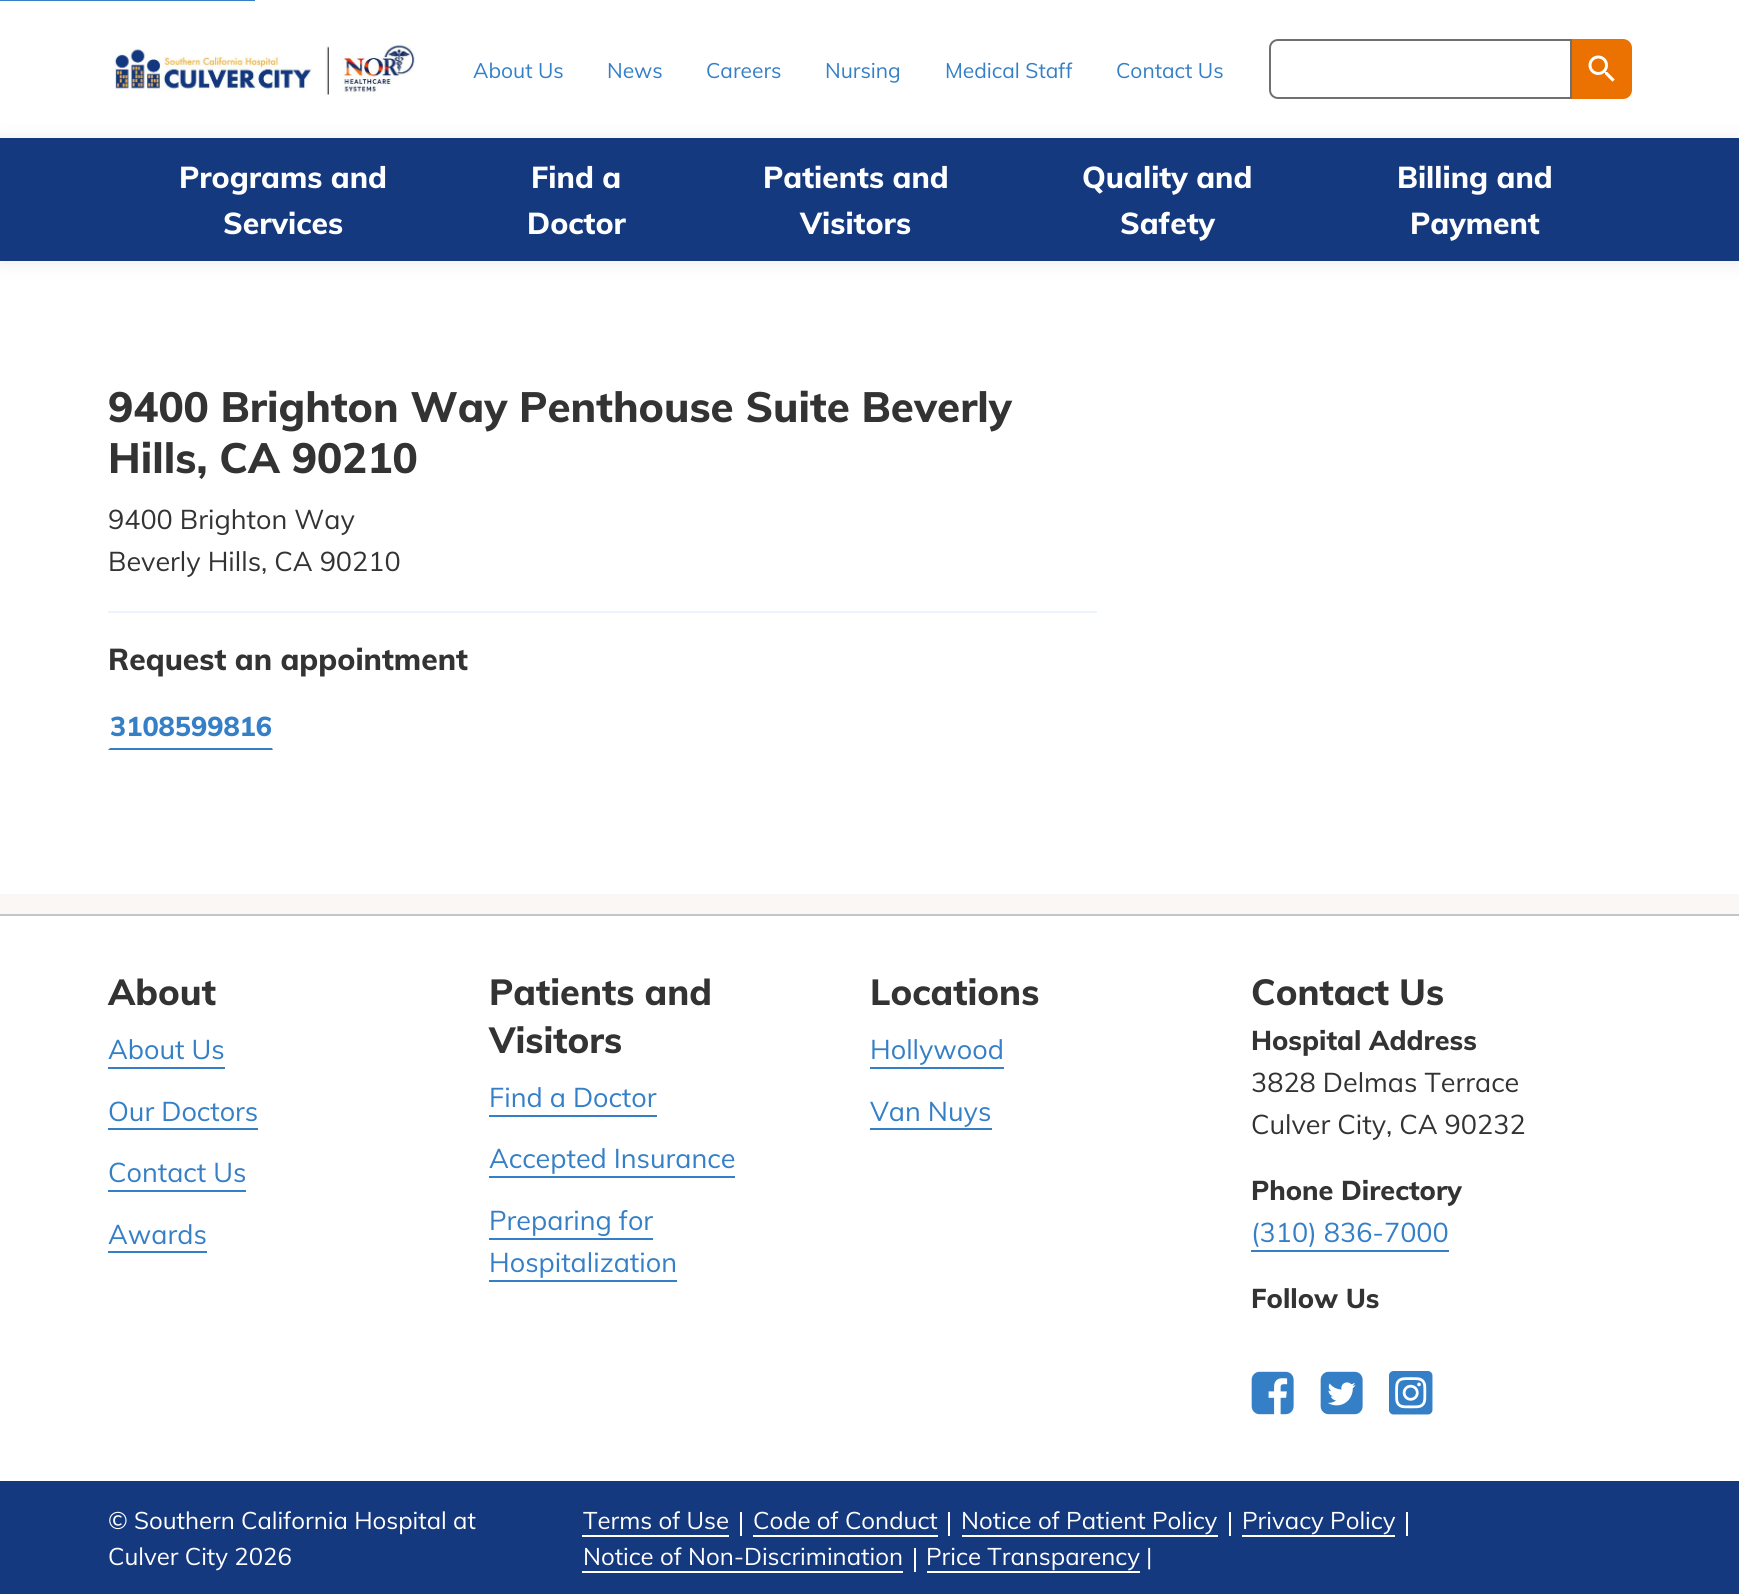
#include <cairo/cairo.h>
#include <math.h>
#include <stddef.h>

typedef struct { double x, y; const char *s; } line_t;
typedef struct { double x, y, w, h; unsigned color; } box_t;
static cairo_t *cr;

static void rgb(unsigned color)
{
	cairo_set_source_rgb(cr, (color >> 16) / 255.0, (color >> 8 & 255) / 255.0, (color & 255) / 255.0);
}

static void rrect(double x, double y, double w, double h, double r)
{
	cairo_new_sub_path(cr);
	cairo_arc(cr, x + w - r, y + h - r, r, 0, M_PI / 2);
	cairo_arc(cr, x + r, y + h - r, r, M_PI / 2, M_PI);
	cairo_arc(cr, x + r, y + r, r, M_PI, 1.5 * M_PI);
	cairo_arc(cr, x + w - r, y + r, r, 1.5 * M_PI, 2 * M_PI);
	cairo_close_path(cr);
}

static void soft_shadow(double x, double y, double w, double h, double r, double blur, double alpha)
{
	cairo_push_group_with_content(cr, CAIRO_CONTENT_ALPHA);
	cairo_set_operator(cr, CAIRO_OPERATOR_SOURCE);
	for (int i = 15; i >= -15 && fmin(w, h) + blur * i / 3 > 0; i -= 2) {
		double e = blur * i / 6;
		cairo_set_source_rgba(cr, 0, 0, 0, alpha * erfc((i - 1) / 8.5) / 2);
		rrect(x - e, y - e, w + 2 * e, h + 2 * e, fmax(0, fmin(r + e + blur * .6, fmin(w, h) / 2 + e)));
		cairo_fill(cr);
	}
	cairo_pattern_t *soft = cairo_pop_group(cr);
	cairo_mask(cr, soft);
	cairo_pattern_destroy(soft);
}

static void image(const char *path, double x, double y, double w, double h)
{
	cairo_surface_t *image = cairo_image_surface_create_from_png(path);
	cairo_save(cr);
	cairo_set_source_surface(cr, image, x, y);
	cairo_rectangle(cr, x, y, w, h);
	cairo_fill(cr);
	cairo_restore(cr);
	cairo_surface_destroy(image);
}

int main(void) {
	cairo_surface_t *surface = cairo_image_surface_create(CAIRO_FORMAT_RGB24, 1739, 1594);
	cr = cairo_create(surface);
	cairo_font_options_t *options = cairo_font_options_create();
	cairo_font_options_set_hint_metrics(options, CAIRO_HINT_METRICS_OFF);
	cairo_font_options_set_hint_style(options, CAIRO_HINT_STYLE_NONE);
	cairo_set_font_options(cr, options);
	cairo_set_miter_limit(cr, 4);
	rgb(0xffffff);
	cairo_paint(cr);
	rgb(0x357fc7);
	cairo_rectangle(cr, 0, 0, 255, 1);
	cairo_fill(cr);
	image("img/1.png", 114, 44, 301, 51);
	cairo_new_path(cr);
	cairo_move_to(cr, 1278, 40);
	cairo_line_to(cr, 1571, 40);
	cairo_line_to(cr, 1571, 98);
	cairo_line_to(cr, 1278, 98);
	cairo_curve_to(cr, 1273.5, 98, 1270, 94.5, 1270, 90);
	cairo_line_to(cr, 1270, 48);
	cairo_curve_to(cr, 1270, 43.5, 1273.5, 40, 1278, 40);
	cairo_close_path(cr);
	rgb(0x707070);
	cairo_stroke(cr);
	rgb(0xeb7100);
	cairo_new_path(cr);
	cairo_move_to(cr, 1572, 39);
	cairo_line_to(cr, 1623, 39);
	cairo_curve_to(cr, 1628, 39, 1632, 43, 1632, 48);
	cairo_line_to(cr, 1632, 90);
	cairo_curve_to(cr, 1632, 95, 1628, 99, 1623, 99);
	cairo_line_to(cr, 1572, 99);
	cairo_close_path(cr);
	cairo_fill(cr);
	image("img/2.png", 1588, 55, 27, 27);
	rgb(0x333333);
	soft_shadow(0, 140, 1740, 123, 0, 9, 0.1);
	{
		static const box_t items[] = {
			{0, 138, 1739, 123, 0x15397f},
			{0, 894, 1739, 20, 0xfaf7f5},
			{108, 611, 989, 2, 0xecf4fd},
		};
		for (size_t i = 0; i < sizeof items / sizeof *items; i++) {
			rgb(items[i].color);
			cairo_rectangle(cr, items[i].x, items[i].y, items[i].w, items[i].h);
			cairo_fill(cr);
		}
	}
	rgb(0x357fc7);
	cairo_new_path(cr);
	cairo_move_to(cr, 273, 750);
	cairo_line_to(cr, 108, 750);
	cairo_line_to(cr, 110, 748);
	cairo_line_to(cr, 272, 748);
	cairo_close_path(cr);
	cairo_fill(cr);
	{
		static const box_t items[] = {
			{0, 914, 1739, 2, 0xc4c4c4},
			{108, 1067, 117, 2, 0x357fc7},
			{108, 1128, 150, 2, 0x357fc7},
			{108, 1190, 138, 2, 0x357fc7},
			{108, 1251, 99, 2, 0x357fc7},
			{489, 1115, 168, 2, 0x357fc7},
			{489, 1176, 246, 2, 0x357fc7},
			{489, 1238, 164, 2, 0x357fc7},
			{489, 1280, 188, 2, 0x357fc7},
			{870, 1067, 134, 2, 0x357fc7},
			{870, 1128, 122, 2, 0x357fc7},
			{1251, 1250, 198, 2, 0x357fc7},
		};
		for (size_t i = 0; i < sizeof items / sizeof *items; i++) {
			rgb(items[i].color);
			cairo_rectangle(cr, items[i].x, items[i].y, items[i].w, items[i].h);
			cairo_fill(cr);
		}
	}
	image("img/3.png", 1251, 1371, 43, 44);
	image("img/4.png", 1320, 1371, 43, 44);
	image("img/5.png", 1389, 1371, 44, 44);
	{
		static const box_t items[] = {
			{0, 1481, 1739, 113, 0x15397f},
			{582, 1535, 147, 2, 0xffffff},
			{740, 1512, 2, 24, 0xffffff},
			{753, 1535, 185, 2, 0xffffff},
			{948, 1512, 2, 24, 0xffffff},
			{962, 1535, 256, 2, 0xffffff},
			{1229, 1512, 2, 24, 0xffffff},
			{1242, 1535, 153, 2, 0xffffff},
			{1406, 1512, 2, 24, 0xffffff},
			{582, 1571, 321, 2, 0xffffff},
			{914, 1548, 2, 24, 0xffffff},
			{927, 1571, 213, 2, 0xffffff},
		};
		for (size_t i = 0; i < sizeof items / sizeof *items; i++) {
			rgb(items[i].color);
			cairo_rectangle(cr, items[i].x, items[i].y, items[i].w, items[i].h);
			cairo_fill(cr);
		}
	}
	cairo_select_font_face(cr, "Muli", CAIRO_FONT_SLANT_NORMAL, CAIRO_FONT_WEIGHT_NORMAL);
	cairo_set_font_size(cr, 21);
	rgb(0x357fc7);
	{
		static const line_t items[] = {
			{473, 78, "About Us"},
			{607, 78, "News"},
			{706, 78, "Careers"},
			{825, 78, "Nursing"},
			{945, 78, "Medical Staff"},
			{1116, 78, "Contact Us"},
		};
		for (size_t i = 0; i < sizeof items / sizeof *items; i++) {
			cairo_move_to(cr, items[i].x, items[i].y);
			cairo_show_text(cr, items[i].s);
		}
	}
	cairo_select_font_face(cr, "Muli ExtraBold", CAIRO_FONT_SLANT_NORMAL, CAIRO_FONT_WEIGHT_NORMAL);
	cairo_set_font_size(cr, 30);
	rgb(0xffffff);
	{
		static const line_t items[] = {
			{179, 188, "Programs and"},
			{223, 234, "Services"},
			{531, 188, "Find a"},
			{527, 234, "Doctor"},
			{763, 188, "Patients and"},
			{800, 234, "Visitors"},
			{1082, 188, "Quality and"},
			{1120, 234, "Safety"},
			{1397, 188, "Billing and"},
			{1410, 234, "Payment"},
		};
		for (size_t i = 0; i < sizeof items / sizeof *items; i++) {
			cairo_move_to(cr, items[i].x, items[i].y);
			cairo_show_text(cr, items[i].s);
		}
	}
	cairo_set_font_size(cr, 42);
	rgb(0x333333);
	cairo_move_to(cr, 108, 422);
	cairo_show_text(cr, "9400 Brighton Way Penthouse Suite Beverly");
	cairo_move_to(cr, 108, 473);
	cairo_show_text(cr, "Hills, CA 90210");
	cairo_select_font_face(cr, "Muli", CAIRO_FONT_SLANT_NORMAL, CAIRO_FONT_WEIGHT_NORMAL);
	cairo_set_font_size(cr, 27);
	cairo_move_to(cr, 108, 529);
	cairo_show_text(cr, "9400 Brighton Way");
	cairo_move_to(cr, 108, 571);
	cairo_show_text(cr, "Beverly Hills, CA 90210");
	cairo_select_font_face(cr, "Muli ExtraBold", CAIRO_FONT_SLANT_NORMAL, CAIRO_FONT_WEIGHT_NORMAL);
	cairo_set_font_size(cr, 30);
	cairo_move_to(cr, 108, 670);
	cairo_show_text(cr, "Request an appointment");
	cairo_set_font_size(cr, 27);
	rgb(0x357fc7);
	cairo_move_to(cr, 110, 736);
	cairo_show_text(cr, "3108599816");
	cairo_set_font_size(cr, 36);
	rgb(0x333333);
	cairo_move_to(cr, 108, 1005);
	cairo_show_text(cr, "About");
	cairo_select_font_face(cr, "Muli", CAIRO_FONT_SLANT_NORMAL, CAIRO_FONT_WEIGHT_NORMAL);
	cairo_set_font_size(cr, 27);
	rgb(0x357fc7);
	{
		static const line_t items[] = {
			{108, 1059, "About Us"},
			{108, 1121, "Our Doctors"},
			{108, 1182, "Contact Us"},
			{108, 1244, "Awards"},
		};
		for (size_t i = 0; i < sizeof items / sizeof *items; i++) {
			cairo_move_to(cr, items[i].x, items[i].y);
			cairo_show_text(cr, items[i].s);
		}
	}
	cairo_select_font_face(cr, "Muli ExtraBold", CAIRO_FONT_SLANT_NORMAL, CAIRO_FONT_WEIGHT_NORMAL);
	cairo_set_font_size(cr, 36);
	rgb(0x333333);
	cairo_move_to(cr, 489, 1005);
	cairo_show_text(cr, "Patients and");
	cairo_move_to(cr, 489, 1053);
	cairo_show_text(cr, "Visitors");
	cairo_select_font_face(cr, "Muli", CAIRO_FONT_SLANT_NORMAL, CAIRO_FONT_WEIGHT_NORMAL);
	cairo_set_font_size(cr, 27);
	rgb(0x357fc7);
	{
		static const line_t items[] = {
			{489, 1107, "Find a Doctor"},
			{489, 1168, "Accepted Insurance"},
			{489, 1230, "Preparing for"},
			{489, 1272, "Hospitalization"},
		};
		for (size_t i = 0; i < sizeof items / sizeof *items; i++) {
			cairo_move_to(cr, items[i].x, items[i].y);
			cairo_show_text(cr, items[i].s);
		}
	}
	cairo_select_font_face(cr, "Muli ExtraBold", CAIRO_FONT_SLANT_NORMAL, CAIRO_FONT_WEIGHT_NORMAL);
	cairo_set_font_size(cr, 36);
	rgb(0x333333);
	cairo_move_to(cr, 870, 1005);
	cairo_show_text(cr, "Locations");
	cairo_select_font_face(cr, "Muli", CAIRO_FONT_SLANT_NORMAL, CAIRO_FONT_WEIGHT_NORMAL);
	cairo_set_font_size(cr, 27);
	rgb(0x357fc7);
	cairo_move_to(cr, 870, 1059);
	cairo_show_text(cr, "Hollywood");
	cairo_move_to(cr, 870, 1121);
	cairo_show_text(cr, "Van Nuys");
	cairo_select_font_face(cr, "Muli ExtraBold", CAIRO_FONT_SLANT_NORMAL, CAIRO_FONT_WEIGHT_NORMAL);
	cairo_set_font_size(cr, 36);
	rgb(0x333333);
	cairo_move_to(cr, 1251, 1005);
	cairo_show_text(cr, "Contact Us");
	cairo_set_font_size(cr, 27);
	cairo_move_to(cr, 1251, 1050);
	cairo_show_text(cr, "Hospital Address");
	cairo_select_font_face(cr, "Muli", CAIRO_FONT_SLANT_NORMAL, CAIRO_FONT_WEIGHT_NORMAL);
	cairo_move_to(cr, 1251, 1092);
	cairo_show_text(cr, "3828 Delmas Terrace");
	cairo_move_to(cr, 1251, 1134);
	cairo_show_text(cr, "Culver City, CA 90232");
	cairo_select_font_face(cr, "Muli ExtraBold", CAIRO_FONT_SLANT_NORMAL, CAIRO_FONT_WEIGHT_NORMAL);
	cairo_move_to(cr, 1251, 1200);
	cairo_show_text(cr, "Phone Directory");
	cairo_select_font_face(cr, "Muli", CAIRO_FONT_SLANT_NORMAL, CAIRO_FONT_WEIGHT_NORMAL);
	rgb(0x357fc7);
	cairo_move_to(cr, 1251, 1242);
	cairo_show_text(cr, "(310) 836-7000");
	cairo_select_font_face(cr, "Muli ExtraBold", CAIRO_FONT_SLANT_NORMAL, CAIRO_FONT_WEIGHT_NORMAL);
	rgb(0x333333);
	cairo_move_to(cr, 1251, 1308);
	cairo_show_text(cr, "Follow Us");
	cairo_select_font_face(cr, "Muli", CAIRO_FONT_SLANT_NORMAL, CAIRO_FONT_WEIGHT_NORMAL);
	cairo_set_font_size(cr, 24);
	rgb(0xffffff);
	{
		static const line_t items[] = {
			{108, 1529, "© Southern California Hospital at"},
			{108, 1565, "Culver City 2026"},
			{583, 1529, "Terms of Use"},
			{753, 1529, "Code of Conduct"},
			{961, 1529, "Notice of Patient Policy"},
			{1242, 1529, "Privacy Policy"},
			{583, 1565, "Notice of Non-Discrimination"},
			{926, 1565, "Price Transparency"},
			{1146, 1565, "|"},
		};
		for (size_t i = 0; i < sizeof items / sizeof *items; i++) {
			cairo_move_to(cr, items[i].x, items[i].y);
			cairo_show_text(cr, items[i].s);
		}
	}
	cairo_surface_write_to_png(surface, "page.png");
	cairo_font_options_destroy(options);
	cairo_destroy(cr);
	cairo_surface_destroy(surface);
	return 0;
}
